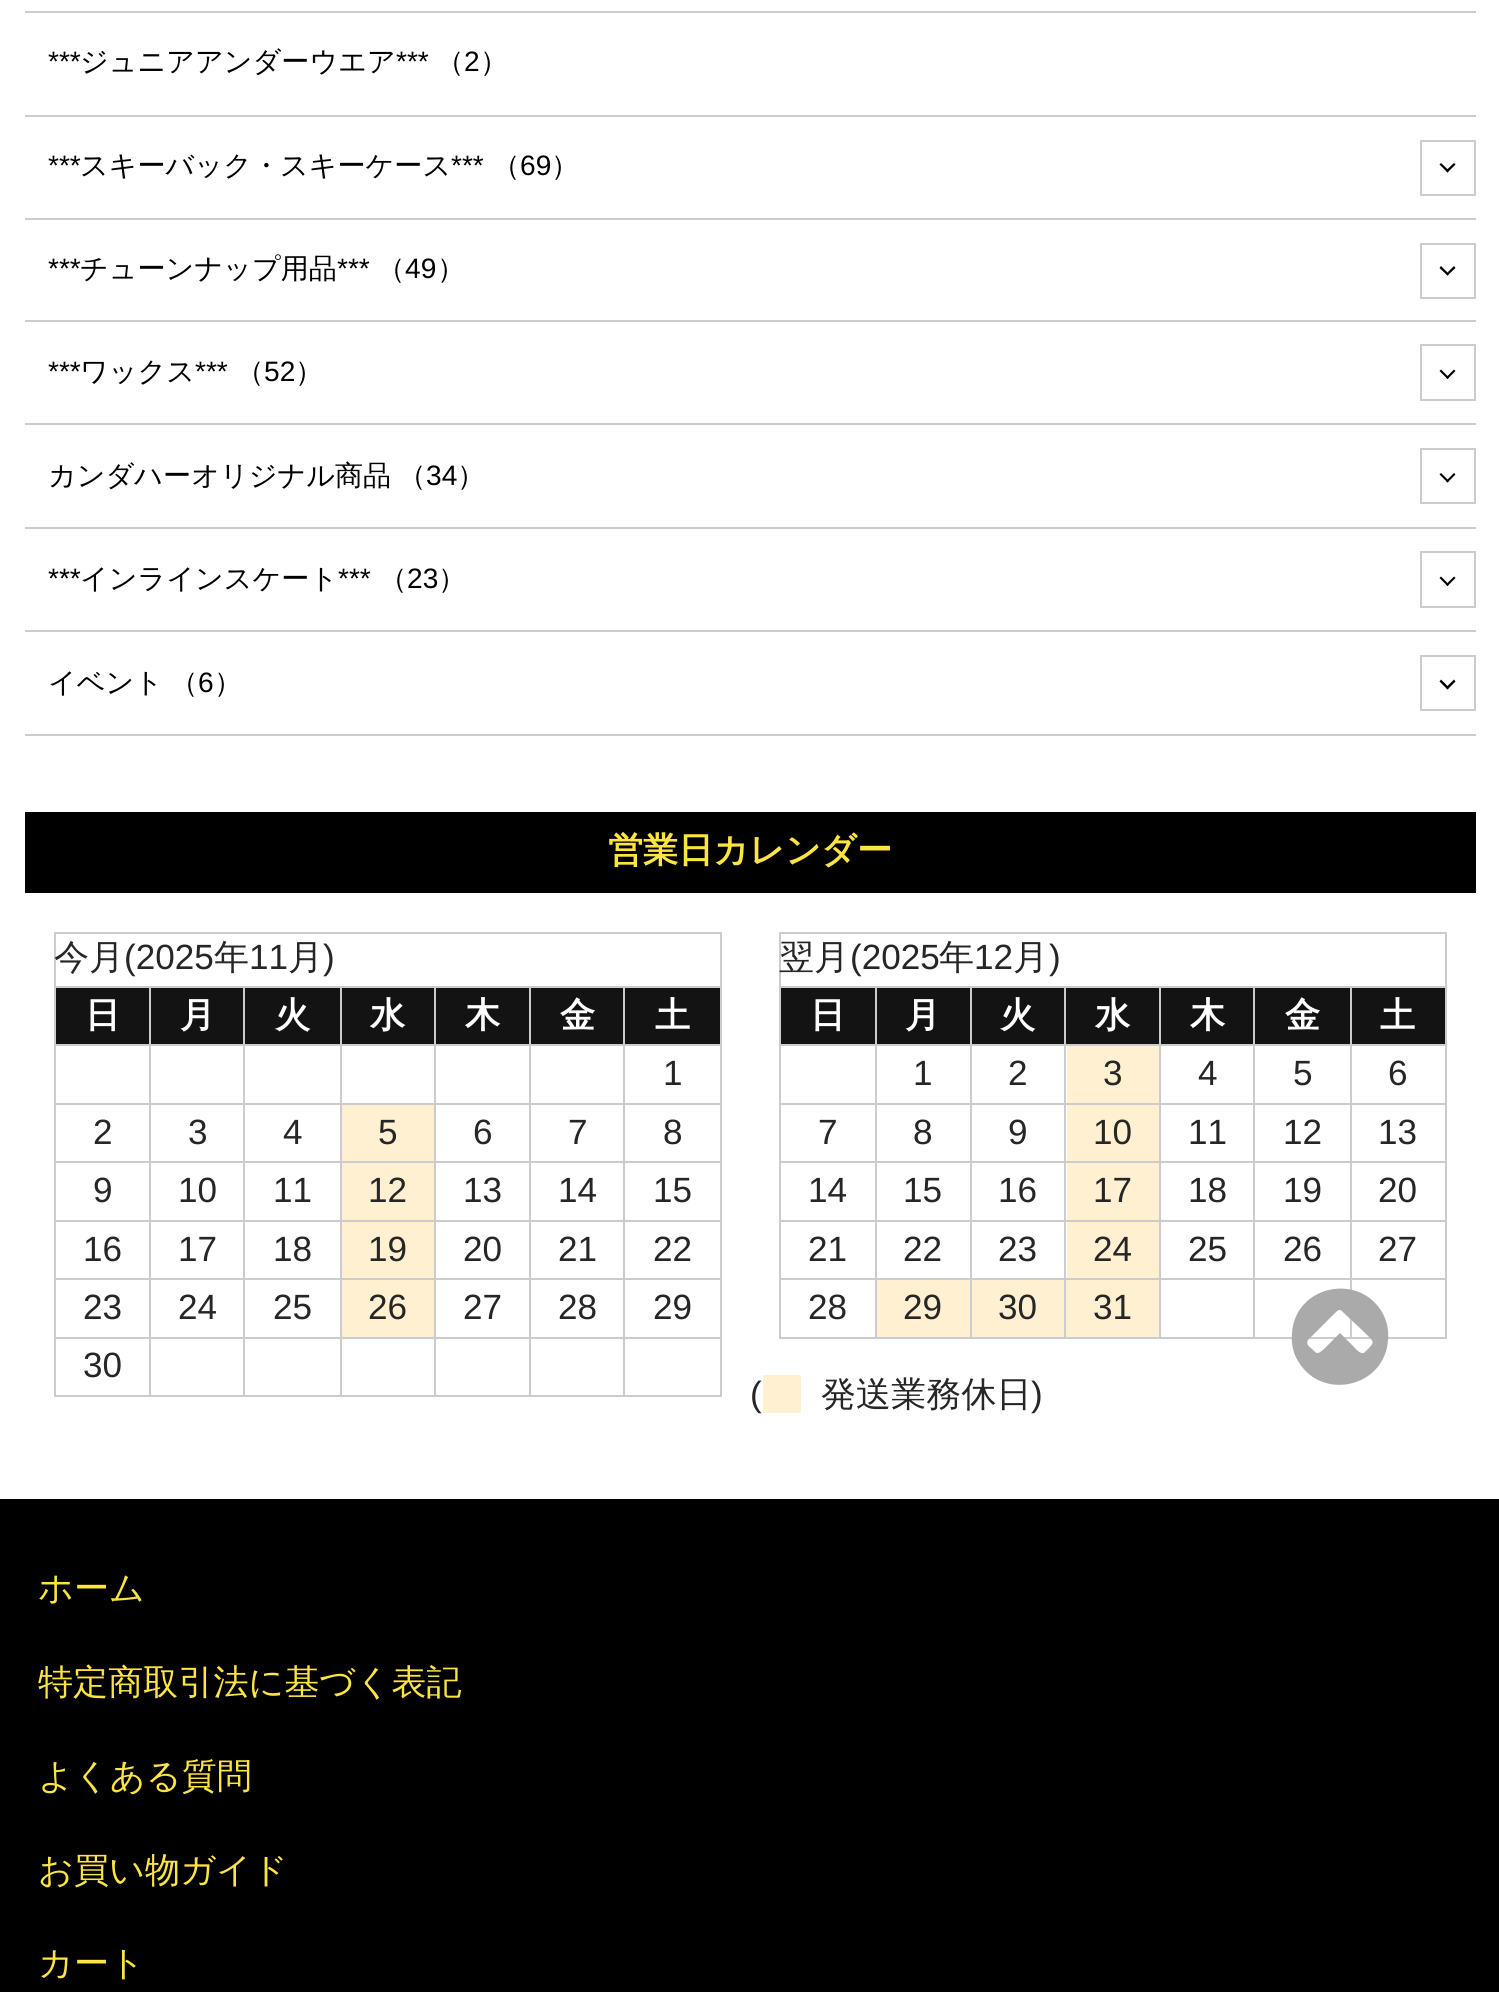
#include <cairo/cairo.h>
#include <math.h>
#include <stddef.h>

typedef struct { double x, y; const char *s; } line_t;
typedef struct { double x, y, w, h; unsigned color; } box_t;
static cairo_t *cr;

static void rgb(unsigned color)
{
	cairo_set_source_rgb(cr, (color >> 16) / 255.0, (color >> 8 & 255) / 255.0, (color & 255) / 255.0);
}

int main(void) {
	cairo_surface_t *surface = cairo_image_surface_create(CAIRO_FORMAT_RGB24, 1499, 1992);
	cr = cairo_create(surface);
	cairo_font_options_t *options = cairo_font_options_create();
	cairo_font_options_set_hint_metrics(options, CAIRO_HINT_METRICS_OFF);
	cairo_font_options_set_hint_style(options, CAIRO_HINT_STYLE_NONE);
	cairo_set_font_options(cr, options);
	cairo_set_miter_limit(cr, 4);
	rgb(0xffffff);
	cairo_paint(cr);
	{
		static const box_t items[] = {
			{25, 115, 1451, 2, 0xcccccc},
			{25, 11, 1451, 2, 0xcccccc},
			{25, 218, 1451, 2, 0xcccccc},
		};
		for (size_t i = 0; i < sizeof items / sizeof *items; i++) {
			rgb(items[i].color);
			cairo_rectangle(cr, items[i].x, items[i].y, items[i].w, items[i].h);
			cairo_fill(cr);
		}
	}
	cairo_rectangle(cr, 1421, 141, 54, 54);
	cairo_stroke(cr);
	rgb(0x000000);
	cairo_new_path(cr);
	cairo_move_to(cr, 1454, 163);
	cairo_line_to(cr, 1455.5, 164.5);
	cairo_line_to(cr, 1447.5, 172.5);
	cairo_line_to(cr, 1446, 170.5);
	cairo_close_path(cr);
	cairo_fill(cr);
	cairo_new_path(cr);
	cairo_move_to(cr, 1441, 163);
	cairo_line_to(cr, 1449, 170.5);
	cairo_line_to(cr, 1447.5, 172.5);
	cairo_line_to(cr, 1439.5, 164.5);
	cairo_close_path(cr);
	cairo_fill(cr);
	rgb(0xcccccc);
	cairo_rectangle(cr, 25, 320, 1451, 2);
	cairo_fill(cr);
	cairo_rectangle(cr, 1421, 244, 54, 54);
	cairo_stroke(cr);
	rgb(0x000000);
	cairo_new_path(cr);
	cairo_move_to(cr, 1454, 266);
	cairo_line_to(cr, 1455.5, 268);
	cairo_line_to(cr, 1447.5, 275.5);
	cairo_line_to(cr, 1446, 274);
	cairo_close_path(cr);
	cairo_fill(cr);
	cairo_new_path(cr);
	cairo_move_to(cr, 1441, 266);
	cairo_line_to(cr, 1449, 274);
	cairo_line_to(cr, 1447.5, 275.5);
	cairo_line_to(cr, 1439.5, 268);
	cairo_close_path(cr);
	cairo_fill(cr);
	rgb(0xcccccc);
	cairo_rectangle(cr, 25, 423, 1451, 2);
	cairo_fill(cr);
	cairo_rectangle(cr, 1421, 345, 54, 55);
	cairo_stroke(cr);
	rgb(0x000000);
	cairo_new_path(cr);
	cairo_move_to(cr, 1454, 369.5);
	cairo_line_to(cr, 1455.5, 371);
	cairo_line_to(cr, 1447.5, 379);
	cairo_line_to(cr, 1446, 377.5);
	cairo_close_path(cr);
	cairo_fill(cr);
	cairo_new_path(cr);
	cairo_move_to(cr, 1441, 369.5);
	cairo_line_to(cr, 1449, 377.5);
	cairo_line_to(cr, 1447.5, 379);
	cairo_line_to(cr, 1439.5, 371);
	cairo_close_path(cr);
	cairo_fill(cr);
	rgb(0xcccccc);
	cairo_rectangle(cr, 25, 527, 1451, 2);
	cairo_fill(cr);
	cairo_rectangle(cr, 1421, 449, 54, 54);
	cairo_stroke(cr);
	rgb(0x000000);
	cairo_new_path(cr);
	cairo_move_to(cr, 1454, 473);
	cairo_line_to(cr, 1455.5, 474.5);
	cairo_line_to(cr, 1447.5, 482.5);
	cairo_line_to(cr, 1446, 481);
	cairo_close_path(cr);
	cairo_fill(cr);
	cairo_new_path(cr);
	cairo_move_to(cr, 1441, 473);
	cairo_line_to(cr, 1449, 481);
	cairo_line_to(cr, 1447.5, 482.5);
	cairo_line_to(cr, 1439.5, 474.5);
	cairo_close_path(cr);
	cairo_fill(cr);
	rgb(0xcccccc);
	cairo_rectangle(cr, 25, 630, 1451, 2);
	cairo_fill(cr);
	cairo_rectangle(cr, 1421, 552, 54, 55);
	cairo_stroke(cr);
	rgb(0x000000);
	cairo_new_path(cr);
	cairo_move_to(cr, 1454, 576.5);
	cairo_line_to(cr, 1455.5, 578);
	cairo_line_to(cr, 1447.5, 586);
	cairo_line_to(cr, 1446, 584.5);
	cairo_close_path(cr);
	cairo_fill(cr);
	cairo_new_path(cr);
	cairo_move_to(cr, 1441, 576.5);
	cairo_line_to(cr, 1449, 584.5);
	cairo_line_to(cr, 1447.5, 586);
	cairo_line_to(cr, 1439.5, 578);
	cairo_close_path(cr);
	cairo_fill(cr);
	rgb(0xcccccc);
	cairo_rectangle(cr, 25, 734, 1451, 2);
	cairo_fill(cr);
	cairo_rectangle(cr, 1421, 656, 54, 54);
	cairo_stroke(cr);
	rgb(0x000000);
	cairo_new_path(cr);
	cairo_move_to(cr, 1454, 679.5);
	cairo_line_to(cr, 1455.5, 681.5);
	cairo_line_to(cr, 1447.5, 689.5);
	cairo_line_to(cr, 1446, 687.5);
	cairo_close_path(cr);
	cairo_fill(cr);
	cairo_new_path(cr);
	cairo_move_to(cr, 1441, 679.5);
	cairo_line_to(cr, 1449, 687.5);
	cairo_line_to(cr, 1447.5, 689.5);
	cairo_line_to(cr, 1439.5, 681.5);
	cairo_close_path(cr);
	cairo_fill(cr);
	{
		static const box_t items[] = {
			{25, 812, 1451, 81, 0x000000},
			{54, 932, 668, 2, 0xcccccc},
			{720, 932, 2, 465, 0xcccccc},
			{54, 1395, 668, 2, 0xcccccc},
			{54, 932, 2, 465, 0xcccccc},
			{56, 988, 93, 56, 0x131313},
			{623, 986, 99, 2, 0xcccccc},
			{531, 988, 189, 56, 0x131313},
			{623, 1044, 99, 2, 0xcccccc},
			{623, 1103, 99, 2, 0xcccccc},
			{623, 1161, 99, 2, 0xcccccc},
			{623, 1220, 99, 2, 0xcccccc},
			{623, 1278, 99, 2, 0xcccccc},
			{623, 1337, 99, 2, 0xcccccc},
			{623, 1337, 2, 60, 0xcccccc},
			{529, 1337, 97, 2, 0xcccccc},
			{623, 1278, 2, 61, 0xcccccc},
			{529, 1278, 97, 2, 0xcccccc},
			{623, 1220, 2, 60, 0xcccccc},
			{529, 1220, 97, 2, 0xcccccc},
			{623, 1161, 2, 61, 0xcccccc},
			{529, 1161, 97, 2, 0xcccccc},
			{623, 1103, 2, 60, 0xcccccc},
			{529, 1103, 97, 2, 0xcccccc},
			{623, 1044, 2, 61, 0xcccccc},
			{529, 1044, 97, 2, 0xcccccc},
			{623, 986, 2, 60, 0xcccccc},
			{529, 986, 97, 2, 0xcccccc},
			{529, 1337, 2, 60, 0xcccccc},
			{434, 1337, 97, 2, 0xcccccc},
			{529, 1278, 2, 61, 0xcccccc},
			{434, 1278, 97, 2, 0xcccccc},
			{529, 1220, 2, 60, 0xcccccc},
			{434, 1220, 97, 2, 0xcccccc},
			{529, 1161, 2, 61, 0xcccccc},
			{434, 1161, 97, 2, 0xcccccc},
			{529, 1103, 2, 60, 0xcccccc},
			{434, 1103, 97, 2, 0xcccccc},
			{529, 1044, 2, 61, 0xcccccc},
			{434, 1044, 97, 2, 0xcccccc},
			{529, 986, 2, 60, 0xcccccc},
			{434, 986, 97, 2, 0xcccccc},
			{434, 1337, 2, 60, 0xcccccc},
			{340, 1337, 97, 2, 0xcccccc},
			{434, 1278, 2, 61, 0xcccccc},
			{340, 1278, 97, 2, 0xcccccc},
			{434, 1220, 2, 60, 0xcccccc},
			{340, 1220, 97, 2, 0xcccccc},
			{434, 1161, 2, 61, 0xcccccc},
			{340, 1161, 97, 2, 0xcccccc},
			{434, 1103, 2, 60, 0xcccccc},
			{340, 1103, 97, 2, 0xcccccc},
			{434, 1044, 2, 61, 0xcccccc},
			{340, 1044, 97, 2, 0xcccccc},
			{434, 986, 2, 60, 0xcccccc},
			{340, 986, 97, 2, 0xcccccc},
			{340, 1337, 2, 60, 0xcccccc},
			{243, 1337, 99, 2, 0xcccccc},
			{340, 1278, 2, 61, 0xcccccc},
			{243, 1278, 99, 2, 0xcccccc},
			{340, 1220, 2, 60, 0xcccccc},
			{243, 1220, 99, 2, 0xcccccc},
			{340, 1161, 2, 61, 0xcccccc},
			{243, 1161, 99, 2, 0xcccccc},
			{340, 1103, 2, 60, 0xcccccc},
			{243, 1103, 99, 2, 0xcccccc},
			{340, 1044, 2, 61, 0xcccccc},
			{243, 1044, 99, 2, 0xcccccc},
			{340, 986, 2, 60, 0xcccccc},
			{243, 986, 99, 2, 0xcccccc},
			{243, 1337, 2, 60, 0xcccccc},
			{149, 1337, 96, 2, 0xcccccc},
			{243, 1278, 2, 61, 0xcccccc},
			{149, 1278, 96, 2, 0xcccccc},
			{243, 1220, 2, 60, 0xcccccc},
			{149, 1220, 96, 2, 0xcccccc},
			{243, 1161, 2, 61, 0xcccccc},
			{149, 1161, 96, 2, 0xcccccc},
			{243, 1103, 2, 60, 0xcccccc},
			{149, 1103, 96, 2, 0xcccccc},
			{243, 1044, 2, 61, 0xcccccc},
			{149, 1044, 96, 2, 0xcccccc},
			{243, 986, 2, 60, 0xcccccc},
			{149, 986, 96, 2, 0xcccccc},
			{149, 1337, 2, 60, 0xcccccc},
			{54, 1337, 97, 2, 0xcccccc},
			{149, 1278, 2, 61, 0xcccccc},
			{54, 1278, 97, 2, 0xcccccc},
			{149, 1220, 2, 60, 0xcccccc},
			{54, 1220, 97, 2, 0xcccccc},
			{149, 1161, 2, 61, 0xcccccc},
			{54, 1161, 97, 2, 0xcccccc},
			{149, 1103, 2, 60, 0xcccccc},
			{54, 1103, 97, 2, 0xcccccc},
			{149, 1044, 2, 61, 0xcccccc},
			{54, 1044, 97, 2, 0xcccccc},
			{149, 986, 2, 60, 0xcccccc},
			{54, 986, 97, 2, 0xcccccc},
			{151, 988, 92, 56, 0x131313},
			{245, 988, 95, 56, 0x131313},
			{342, 988, 92, 56, 0x131313},
			{436, 988, 93, 56, 0x131313},
			{342, 1105, 92, 56, 0xfff0d1},
			{342, 1163, 92, 57, 0xfff0d1},
			{342, 1222, 92, 56, 0xfff0d1},
			{342, 1280, 92, 57, 0xfff0d1},
			{779, 932, 668, 2, 0xcccccc},
			{1445, 932, 2, 407, 0xcccccc},
			{779, 1337, 668, 2, 0xcccccc},
			{779, 932, 2, 407, 0xcccccc},
			{781, 988, 94, 56, 0x131313},
			{1350, 986, 97, 2, 0xcccccc},
			{1350, 1044, 97, 2, 0xcccccc},
			{1350, 1103, 97, 2, 0xcccccc},
			{1350, 1161, 97, 2, 0xcccccc},
			{1350, 1220, 97, 2, 0xcccccc},
			{1350, 1278, 97, 2, 0xcccccc},
			{1350, 1278, 2, 61, 0xcccccc},
			{1253, 1278, 99, 2, 0xcccccc},
			{1350, 1220, 2, 60, 0xcccccc},
			{1253, 1220, 99, 2, 0xcccccc},
			{1350, 1161, 2, 61, 0xcccccc},
			{1253, 1161, 99, 2, 0xcccccc},
			{1350, 1103, 2, 60, 0xcccccc},
			{1253, 1103, 99, 2, 0xcccccc},
			{1350, 1044, 2, 61, 0xcccccc},
			{1253, 1044, 99, 2, 0xcccccc},
			{1350, 986, 2, 60, 0xcccccc},
			{1253, 986, 99, 2, 0xcccccc},
			{1161, 988, 189, 56, 0x131313},
			{1253, 1278, 2, 61, 0xcccccc},
			{1159, 1278, 97, 2, 0xcccccc},
			{1253, 1220, 2, 60, 0xcccccc},
			{1159, 1220, 97, 2, 0xcccccc},
			{1253, 1161, 2, 61, 0xcccccc},
			{1159, 1161, 97, 2, 0xcccccc},
			{1253, 1103, 2, 60, 0xcccccc},
			{1159, 1103, 97, 2, 0xcccccc},
			{1253, 1044, 2, 61, 0xcccccc},
			{1159, 1044, 97, 2, 0xcccccc},
			{1253, 986, 2, 60, 0xcccccc},
			{1159, 986, 97, 2, 0xcccccc},
			{1159, 1278, 2, 61, 0xcccccc},
			{1064, 1278, 97, 2, 0xcccccc},
			{1159, 1220, 2, 60, 0xcccccc},
			{1064, 1220, 97, 2, 0xcccccc},
			{1159, 1161, 2, 61, 0xcccccc},
			{1064, 1161, 97, 2, 0xcccccc},
			{1159, 1103, 2, 60, 0xcccccc},
			{1064, 1103, 97, 2, 0xcccccc},
			{1159, 1044, 2, 61, 0xcccccc},
			{1064, 1044, 97, 2, 0xcccccc},
			{1159, 986, 2, 60, 0xcccccc},
			{1064, 986, 97, 2, 0xcccccc},
			{972, 988, 187, 56, 0x131313},
			{972, 1280, 187, 57, 0xfff0d1},
			{1064, 1278, 2, 61, 0xcccccc},
			{970, 1278, 97, 2, 0xcccccc},
			{1064, 1220, 2, 60, 0xcccccc},
			{970, 1220, 97, 2, 0xcccccc},
			{1064, 1161, 2, 61, 0xcccccc},
			{970, 1161, 97, 2, 0xcccccc},
			{1064, 1103, 2, 60, 0xcccccc},
			{970, 1103, 97, 2, 0xcccccc},
			{1064, 1044, 2, 61, 0xcccccc},
			{970, 1044, 97, 2, 0xcccccc},
			{1064, 986, 2, 60, 0xcccccc},
			{970, 986, 97, 2, 0xcccccc},
			{970, 1278, 2, 61, 0xcccccc},
			{875, 1278, 97, 2, 0xcccccc},
			{970, 1220, 2, 60, 0xcccccc},
			{875, 1220, 97, 2, 0xcccccc},
			{970, 1161, 2, 61, 0xcccccc},
			{875, 1161, 97, 2, 0xcccccc},
			{970, 1103, 2, 60, 0xcccccc},
			{875, 1103, 97, 2, 0xcccccc},
			{970, 1044, 2, 61, 0xcccccc},
			{875, 1044, 97, 2, 0xcccccc},
			{970, 986, 2, 60, 0xcccccc},
			{875, 986, 97, 2, 0xcccccc},
			{875, 1278, 2, 61, 0xcccccc},
			{779, 1278, 99, 2, 0xcccccc},
			{875, 1220, 2, 60, 0xcccccc},
			{779, 1220, 99, 2, 0xcccccc},
			{875, 1161, 2, 61, 0xcccccc},
			{779, 1161, 99, 2, 0xcccccc},
			{875, 1103, 2, 60, 0xcccccc},
			{779, 1103, 99, 2, 0xcccccc},
			{875, 1044, 2, 61, 0xcccccc},
			{779, 1044, 99, 2, 0xcccccc},
			{875, 986, 2, 60, 0xcccccc},
			{779, 986, 99, 2, 0xcccccc},
			{877, 988, 93, 56, 0x131313},
			{1352, 988, 93, 56, 0x131313},
			{1067, 1046, 92, 57, 0xfff0d1},
			{1067, 1105, 92, 56, 0xfff0d1},
			{1067, 1163, 92, 57, 0xfff0d1},
			{1067, 1222, 92, 56, 0xfff0d1},
			{877, 1280, 93, 57, 0xfff0d1},
			{763, 1375, 38, 38, 0xfff0d1},
		};
		for (size_t i = 0; i < sizeof items / sizeof *items; i++) {
			rgb(items[i].color);
			cairo_rectangle(cr, items[i].x, items[i].y, items[i].w, items[i].h);
			cairo_fill(cr);
		}
	}
	rgb(0xaaaaaa);
	cairo_new_path(cr);
	cairo_move_to(cr, 1365, 1352);
	cairo_curve_to(cr, 1376, 1341, 1375, 1343, 1362, 1330);
	cairo_line_to(cr, 1347, 1316);
	cairo_curve_to(cr, 1339, 1308, 1340, 1308, 1332, 1316);
	cairo_line_to(cr, 1308, 1340);
	cairo_curve_to(cr, 1306, 1343, 1308, 1346, 1311, 1348);
	cairo_curve_to(cr, 1317, 1354, 1317, 1355, 1324, 1349);
	cairo_line_to(cr, 1340, 1333);
	cairo_line_to(cr, 1353, 1346);
	cairo_curve_to(cr, 1355, 1348, 1361, 1356, 1365, 1352);
	cairo_close_path(cr);
	cairo_move_to(cr, 1382, 1312);
	cairo_curve_to(cr, 1387, 1321, 1389, 1330, 1388, 1340);
	cairo_curve_to(cr, 1385, 1387, 1322, 1402, 1298, 1361);
	cairo_curve_to(cr, 1293, 1353, 1291, 1343, 1292, 1333);
	cairo_curve_to(cr, 1295, 1286, 1358, 1272, 1382, 1312);
	cairo_close_path(cr);
	cairo_fill(cr);
	rgb(0x000000);
	cairo_rectangle(cr, 0, 1499, 1499, 493);
	cairo_fill(cr);
	cairo_select_font_face(cr, "Liberation Sans", CAIRO_FONT_SLANT_NORMAL, CAIRO_FONT_WEIGHT_NORMAL);
	cairo_set_font_size(cr, 28.1);
	cairo_move_to(cr, 48, 71);
	cairo_show_text(cr, "***");
	cairo_select_font_face(cr, "WenQuanYi Zen Hei Medium", CAIRO_FONT_SLANT_NORMAL, CAIRO_FONT_WEIGHT_NORMAL);
	cairo_move_to(cr, 80, 71);
	cairo_show_text(cr, "ジュニアアンダーウエア");
	cairo_select_font_face(cr, "Liberation Sans", CAIRO_FONT_SLANT_NORMAL, CAIRO_FONT_WEIGHT_NORMAL);
	cairo_move_to(cr, 396, 71);
	cairo_show_text(cr, "***");
	cairo_select_font_face(cr, "WenQuanYi Zen Hei Medium", CAIRO_FONT_SLANT_NORMAL, CAIRO_FONT_WEIGHT_NORMAL);
	cairo_move_to(cr, 436, 71);
	cairo_show_text(cr, "（");
	cairo_select_font_face(cr, "Liberation Sans", CAIRO_FONT_SLANT_NORMAL, CAIRO_FONT_WEIGHT_NORMAL);
	cairo_move_to(cr, 464, 71);
	cairo_show_text(cr, "2");
	cairo_select_font_face(cr, "WenQuanYi Zen Hei Medium", CAIRO_FONT_SLANT_NORMAL, CAIRO_FONT_WEIGHT_NORMAL);
	cairo_move_to(cr, 480, 71);
	cairo_show_text(cr, "）");
	cairo_select_font_face(cr, "Liberation Sans", CAIRO_FONT_SLANT_NORMAL, CAIRO_FONT_WEIGHT_NORMAL);
	cairo_move_to(cr, 48, 175);
	cairo_show_text(cr, "***");
	cairo_select_font_face(cr, "WenQuanYi Zen Hei Medium", CAIRO_FONT_SLANT_NORMAL, CAIRO_FONT_WEIGHT_NORMAL);
	cairo_move_to(cr, 80, 175);
	cairo_show_text(cr, "スキーバック・スキーケース");
	cairo_select_font_face(cr, "Liberation Sans", CAIRO_FONT_SLANT_NORMAL, CAIRO_FONT_WEIGHT_NORMAL);
	cairo_move_to(cr, 451, 175);
	cairo_show_text(cr, "***");
	cairo_select_font_face(cr, "WenQuanYi Zen Hei Medium", CAIRO_FONT_SLANT_NORMAL, CAIRO_FONT_WEIGHT_NORMAL);
	cairo_move_to(cr, 492, 175);
	cairo_show_text(cr, "（");
	cairo_select_font_face(cr, "Liberation Sans", CAIRO_FONT_SLANT_NORMAL, CAIRO_FONT_WEIGHT_NORMAL);
	cairo_move_to(cr, 520, 175);
	cairo_show_text(cr, "69");
	cairo_select_font_face(cr, "WenQuanYi Zen Hei Medium", CAIRO_FONT_SLANT_NORMAL, CAIRO_FONT_WEIGHT_NORMAL);
	cairo_move_to(cr, 551, 175);
	cairo_show_text(cr, "）");
	cairo_select_font_face(cr, "Liberation Sans", CAIRO_FONT_SLANT_NORMAL, CAIRO_FONT_WEIGHT_NORMAL);
	cairo_move_to(cr, 48, 278);
	cairo_show_text(cr, "***");
	cairo_select_font_face(cr, "WenQuanYi Zen Hei Medium", CAIRO_FONT_SLANT_NORMAL, CAIRO_FONT_WEIGHT_NORMAL);
	cairo_move_to(cr, 80, 278);
	cairo_show_text(cr, "チューンナップ用品");
	cairo_select_font_face(cr, "Liberation Sans", CAIRO_FONT_SLANT_NORMAL, CAIRO_FONT_WEIGHT_NORMAL);
	cairo_move_to(cr, 337, 278);
	cairo_show_text(cr, "***");
	cairo_select_font_face(cr, "WenQuanYi Zen Hei Medium", CAIRO_FONT_SLANT_NORMAL, CAIRO_FONT_WEIGHT_NORMAL);
	cairo_move_to(cr, 377, 278);
	cairo_show_text(cr, "（");
	cairo_select_font_face(cr, "Liberation Sans", CAIRO_FONT_SLANT_NORMAL, CAIRO_FONT_WEIGHT_NORMAL);
	cairo_move_to(cr, 405, 278);
	cairo_show_text(cr, "49");
	cairo_select_font_face(cr, "WenQuanYi Zen Hei Medium", CAIRO_FONT_SLANT_NORMAL, CAIRO_FONT_WEIGHT_NORMAL);
	cairo_move_to(cr, 437, 278);
	cairo_show_text(cr, "）");
	cairo_select_font_face(cr, "Liberation Sans", CAIRO_FONT_SLANT_NORMAL, CAIRO_FONT_WEIGHT_NORMAL);
	cairo_move_to(cr, 48, 381);
	cairo_show_text(cr, "***");
	cairo_select_font_face(cr, "WenQuanYi Zen Hei Medium", CAIRO_FONT_SLANT_NORMAL, CAIRO_FONT_WEIGHT_NORMAL);
	cairo_move_to(cr, 80, 381);
	cairo_show_text(cr, "ワックス");
	cairo_select_font_face(cr, "Liberation Sans", CAIRO_FONT_SLANT_NORMAL, CAIRO_FONT_WEIGHT_NORMAL);
	cairo_move_to(cr, 195, 381);
	cairo_show_text(cr, "***");
	cairo_select_font_face(cr, "WenQuanYi Zen Hei Medium", CAIRO_FONT_SLANT_NORMAL, CAIRO_FONT_WEIGHT_NORMAL);
	cairo_move_to(cr, 236, 381);
	cairo_show_text(cr, "（");
	cairo_select_font_face(cr, "Liberation Sans", CAIRO_FONT_SLANT_NORMAL, CAIRO_FONT_WEIGHT_NORMAL);
	cairo_move_to(cr, 264, 381);
	cairo_show_text(cr, "52");
	cairo_select_font_face(cr, "WenQuanYi Zen Hei Medium", CAIRO_FONT_SLANT_NORMAL, CAIRO_FONT_WEIGHT_NORMAL);
	{
		static const line_t items[] = {
			{295, 381, "）"},
			{48, 485, "カンダハーオリジナル商品"},
			{398, 485, "（"},
		};
		for (size_t i = 0; i < sizeof items / sizeof *items; i++) {
			cairo_move_to(cr, items[i].x, items[i].y);
			cairo_show_text(cr, items[i].s);
		}
	}
	cairo_select_font_face(cr, "Liberation Sans", CAIRO_FONT_SLANT_NORMAL, CAIRO_FONT_WEIGHT_NORMAL);
	cairo_move_to(cr, 426, 485);
	cairo_show_text(cr, "34");
	cairo_select_font_face(cr, "WenQuanYi Zen Hei Medium", CAIRO_FONT_SLANT_NORMAL, CAIRO_FONT_WEIGHT_NORMAL);
	cairo_move_to(cr, 457, 485);
	cairo_show_text(cr, "）");
	cairo_select_font_face(cr, "Liberation Sans", CAIRO_FONT_SLANT_NORMAL, CAIRO_FONT_WEIGHT_NORMAL);
	cairo_move_to(cr, 48, 588);
	cairo_show_text(cr, "***");
	cairo_select_font_face(cr, "WenQuanYi Zen Hei Medium", CAIRO_FONT_SLANT_NORMAL, CAIRO_FONT_WEIGHT_NORMAL);
	cairo_move_to(cr, 80, 588);
	cairo_show_text(cr, "インラインスケート");
	cairo_select_font_face(cr, "Liberation Sans", CAIRO_FONT_SLANT_NORMAL, CAIRO_FONT_WEIGHT_NORMAL);
	cairo_move_to(cr, 338, 588);
	cairo_show_text(cr, "***");
	cairo_select_font_face(cr, "WenQuanYi Zen Hei Medium", CAIRO_FONT_SLANT_NORMAL, CAIRO_FONT_WEIGHT_NORMAL);
	cairo_move_to(cr, 379, 588);
	cairo_show_text(cr, "（");
	cairo_select_font_face(cr, "Liberation Sans", CAIRO_FONT_SLANT_NORMAL, CAIRO_FONT_WEIGHT_NORMAL);
	cairo_move_to(cr, 407, 588);
	cairo_show_text(cr, "23");
	cairo_select_font_face(cr, "WenQuanYi Zen Hei Medium", CAIRO_FONT_SLANT_NORMAL, CAIRO_FONT_WEIGHT_NORMAL);
	{
		static const line_t items[] = {
			{438, 588, "）"},
			{48, 692, "イベント"},
			{170, 692, "（"},
		};
		for (size_t i = 0; i < sizeof items / sizeof *items; i++) {
			cairo_move_to(cr, items[i].x, items[i].y);
			cairo_show_text(cr, items[i].s);
		}
	}
	cairo_select_font_face(cr, "Liberation Sans", CAIRO_FONT_SLANT_NORMAL, CAIRO_FONT_WEIGHT_NORMAL);
	cairo_move_to(cr, 198, 692);
	cairo_show_text(cr, "6");
	cairo_select_font_face(cr, "WenQuanYi Zen Hei Medium", CAIRO_FONT_SLANT_NORMAL, CAIRO_FONT_WEIGHT_NORMAL);
	cairo_move_to(cr, 214, 692);
	cairo_show_text(cr, "）");
	cairo_select_font_face(cr, "WenQuanYi Zen Hei", CAIRO_FONT_SLANT_NORMAL, CAIRO_FONT_WEIGHT_BOLD);
	cairo_set_font_size(cr, 35.1);
	rgb(0xfce441);
	cairo_move_to(cr, 608, 862);
	cairo_show_text(cr, "営業日カレンダー");
	cairo_select_font_face(cr, "WenQuanYi Zen Hei Medium", CAIRO_FONT_SLANT_NORMAL, CAIRO_FONT_WEIGHT_NORMAL);
	rgb(0x262626);
	cairo_move_to(cr, 54, 969);
	cairo_show_text(cr, "今月");
	cairo_select_font_face(cr, "Liberation Sans", CAIRO_FONT_SLANT_NORMAL, CAIRO_FONT_WEIGHT_NORMAL);
	cairo_move_to(cr, 124, 969);
	cairo_show_text(cr, "(2025");
	cairo_select_font_face(cr, "WenQuanYi Zen Hei Medium", CAIRO_FONT_SLANT_NORMAL, CAIRO_FONT_WEIGHT_NORMAL);
	cairo_move_to(cr, 214, 969);
	cairo_show_text(cr, "年");
	cairo_select_font_face(cr, "Liberation Sans", CAIRO_FONT_SLANT_NORMAL, CAIRO_FONT_WEIGHT_NORMAL);
	cairo_move_to(cr, 249, 969);
	cairo_show_text(cr, "11");
	cairo_select_font_face(cr, "WenQuanYi Zen Hei Medium", CAIRO_FONT_SLANT_NORMAL, CAIRO_FONT_WEIGHT_NORMAL);
	cairo_move_to(cr, 288, 969);
	cairo_show_text(cr, "月");
	cairo_select_font_face(cr, "Liberation Sans", CAIRO_FONT_SLANT_NORMAL, CAIRO_FONT_WEIGHT_NORMAL);
	cairo_move_to(cr, 323, 969);
	cairo_show_text(cr, ")");
	cairo_select_font_face(cr, "WenQuanYi Zen Hei", CAIRO_FONT_SLANT_NORMAL, CAIRO_FONT_WEIGHT_BOLD);
	rgb(0xffffff);
	{
		static const line_t items[] = {
			{85, 1027, "日"},
			{180, 1027, "月"},
			{275, 1027, "火"},
			{370, 1027, "水"},
			{465, 1027, "木"},
			{560, 1027, "金"},
			{655, 1027, "土"},
		};
		for (size_t i = 0; i < sizeof items / sizeof *items; i++) {
			cairo_move_to(cr, items[i].x, items[i].y);
			cairo_show_text(cr, items[i].s);
		}
	}
	cairo_select_font_face(cr, "Liberation Sans", CAIRO_FONT_SLANT_NORMAL, CAIRO_FONT_WEIGHT_NORMAL);
	rgb(0x262626);
	{
		static const line_t items[] = {
			{663, 1085, "1"},
			{93, 1144, "2"},
			{188, 1144, "3"},
			{283, 1144, "4"},
			{378, 1144, "5"},
			{473, 1144, "6"},
			{568, 1144, "7"},
			{663, 1144, "8"},
			{93, 1202, "9"},
			{178, 1202, "10"},
			{273, 1202, "11"},
			{368, 1202, "12"},
			{463, 1202, "13"},
			{558, 1202, "14"},
			{653, 1202, "15"},
			{83, 1261, "16"},
			{178, 1261, "17"},
			{273, 1261, "18"},
			{368, 1261, "19"},
			{463, 1261, "20"},
			{558, 1261, "21"},
			{653, 1261, "22"},
			{83, 1319, "23"},
			{178, 1319, "24"},
			{273, 1319, "25"},
			{368, 1319, "26"},
			{463, 1319, "27"},
			{558, 1319, "28"},
			{653, 1319, "29"},
			{83, 1377, "30"},
		};
		for (size_t i = 0; i < sizeof items / sizeof *items; i++) {
			cairo_move_to(cr, items[i].x, items[i].y);
			cairo_show_text(cr, items[i].s);
		}
	}
	cairo_select_font_face(cr, "WenQuanYi Zen Hei Medium", CAIRO_FONT_SLANT_NORMAL, CAIRO_FONT_WEIGHT_NORMAL);
	cairo_move_to(cr, 779, 969);
	cairo_show_text(cr, "翌月");
	cairo_select_font_face(cr, "Liberation Sans", CAIRO_FONT_SLANT_NORMAL, CAIRO_FONT_WEIGHT_NORMAL);
	cairo_move_to(cr, 850, 969);
	cairo_show_text(cr, "(2025");
	cairo_select_font_face(cr, "WenQuanYi Zen Hei Medium", CAIRO_FONT_SLANT_NORMAL, CAIRO_FONT_WEIGHT_NORMAL);
	cairo_move_to(cr, 939, 969);
	cairo_show_text(cr, "年");
	cairo_select_font_face(cr, "Liberation Sans", CAIRO_FONT_SLANT_NORMAL, CAIRO_FONT_WEIGHT_NORMAL);
	cairo_move_to(cr, 974, 969);
	cairo_show_text(cr, "12");
	cairo_select_font_face(cr, "WenQuanYi Zen Hei Medium", CAIRO_FONT_SLANT_NORMAL, CAIRO_FONT_WEIGHT_NORMAL);
	cairo_move_to(cr, 1013, 969);
	cairo_show_text(cr, "月");
	cairo_select_font_face(cr, "Liberation Sans", CAIRO_FONT_SLANT_NORMAL, CAIRO_FONT_WEIGHT_NORMAL);
	cairo_move_to(cr, 1049, 969);
	cairo_show_text(cr, ")");
	cairo_select_font_face(cr, "WenQuanYi Zen Hei", CAIRO_FONT_SLANT_NORMAL, CAIRO_FONT_WEIGHT_BOLD);
	rgb(0xffffff);
	{
		static const line_t items[] = {
			{810, 1027, "日"},
			{905, 1027, "月"},
			{1000, 1027, "火"},
			{1095, 1027, "水"},
			{1190, 1027, "木"},
			{1285, 1027, "金"},
			{1380, 1027, "土"},
		};
		for (size_t i = 0; i < sizeof items / sizeof *items; i++) {
			cairo_move_to(cr, items[i].x, items[i].y);
			cairo_show_text(cr, items[i].s);
		}
	}
	cairo_select_font_face(cr, "Liberation Sans", CAIRO_FONT_SLANT_NORMAL, CAIRO_FONT_WEIGHT_NORMAL);
	rgb(0x262626);
	{
		static const line_t items[] = {
			{913, 1085, "1"},
			{1008, 1085, "2"},
			{1103, 1085, "3"},
			{1198, 1085, "4"},
			{1293, 1085, "5"},
			{1388, 1085, "6"},
			{818, 1144, "7"},
			{913, 1144, "8"},
			{1008, 1144, "9"},
			{1093, 1144, "10"},
			{1188, 1144, "11"},
			{1283, 1144, "12"},
			{1378, 1144, "13"},
			{808, 1202, "14"},
			{903, 1202, "15"},
			{998, 1202, "16"},
			{1093, 1202, "17"},
			{1188, 1202, "18"},
			{1283, 1202, "19"},
			{1378, 1202, "20"},
			{808, 1261, "21"},
			{903, 1261, "22"},
			{998, 1261, "23"},
			{1093, 1261, "24"},
			{1188, 1261, "25"},
			{1283, 1261, "26"},
			{1378, 1261, "27"},
			{808, 1319, "28"},
			{903, 1319, "29"},
			{998, 1319, "30"},
			{1093, 1319, "31"},
			{750, 1406, "("},
		};
		for (size_t i = 0; i < sizeof items / sizeof *items; i++) {
			cairo_move_to(cr, items[i].x, items[i].y);
			cairo_show_text(cr, items[i].s);
		}
	}
	cairo_select_font_face(cr, "WenQuanYi Zen Hei Medium", CAIRO_FONT_SLANT_NORMAL, CAIRO_FONT_WEIGHT_NORMAL);
	cairo_move_to(cr, 821, 1406);
	cairo_show_text(cr, "発送業務休日");
	cairo_select_font_face(cr, "Liberation Sans", CAIRO_FONT_SLANT_NORMAL, CAIRO_FONT_WEIGHT_NORMAL);
	cairo_move_to(cr, 1031, 1406);
	cairo_show_text(cr, ")");
	cairo_select_font_face(cr, "WenQuanYi Zen Hei Medium", CAIRO_FONT_SLANT_NORMAL, CAIRO_FONT_WEIGHT_NORMAL);
	rgb(0xfce441);
	{
		static const line_t items[] = {
			{38, 1600, "ホーム"},
			{38, 1694, "特定商取引法に基づく表記"},
			{38, 1788, "よくある質問"},
			{38, 1882, "お買い物ガイド"},
			{38, 1975, "カート"},
		};
		for (size_t i = 0; i < sizeof items / sizeof *items; i++) {
			cairo_move_to(cr, items[i].x, items[i].y);
			cairo_show_text(cr, items[i].s);
		}
	}
	cairo_surface_write_to_png(surface, "page.png");
	cairo_font_options_destroy(options);
	cairo_destroy(cr);
	cairo_surface_destroy(surface);
	return 0;
}
